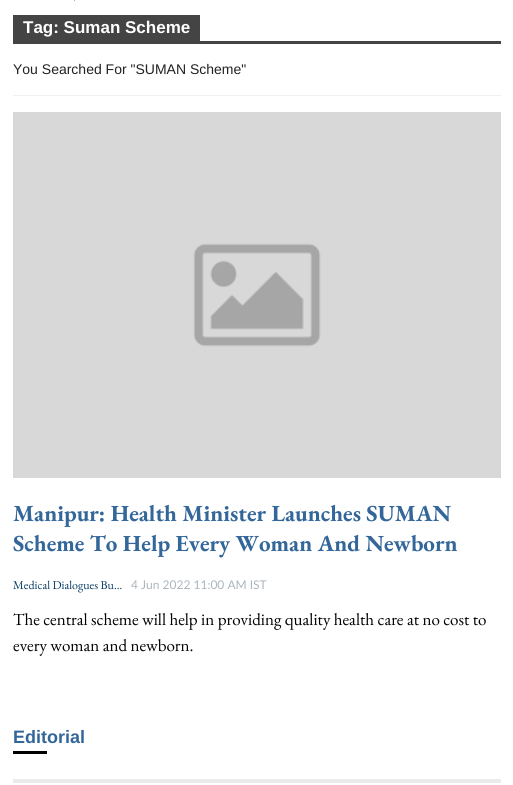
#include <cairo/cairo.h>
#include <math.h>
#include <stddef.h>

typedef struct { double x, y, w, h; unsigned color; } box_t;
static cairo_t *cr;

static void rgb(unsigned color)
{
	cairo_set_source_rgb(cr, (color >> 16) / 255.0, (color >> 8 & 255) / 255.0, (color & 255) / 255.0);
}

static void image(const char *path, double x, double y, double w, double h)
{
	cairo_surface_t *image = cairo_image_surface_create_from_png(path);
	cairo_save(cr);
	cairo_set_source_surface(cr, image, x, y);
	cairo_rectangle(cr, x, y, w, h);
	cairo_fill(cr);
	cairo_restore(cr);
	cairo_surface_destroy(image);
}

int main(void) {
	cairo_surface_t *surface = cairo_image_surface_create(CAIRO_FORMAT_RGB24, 513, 785);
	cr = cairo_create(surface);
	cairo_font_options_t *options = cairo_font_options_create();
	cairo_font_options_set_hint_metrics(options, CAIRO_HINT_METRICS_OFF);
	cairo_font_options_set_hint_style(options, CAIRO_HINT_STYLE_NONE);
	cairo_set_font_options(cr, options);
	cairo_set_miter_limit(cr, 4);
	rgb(0xffffff);
	cairo_paint(cr);
	image("img/1.png", 74, 0, 2, 1);
	{
		static const box_t items[] = {
			{13, 95, 488, 1, 0xf0f0f0},
			{13, 15, 187, 26, 0x444444},
			{13, 41, 488, 3, 0x444444},
		};
		for (size_t i = 0; i < sizeof items / sizeof *items; i++) {
			rgb(items[i].color);
			cairo_rectangle(cr, items[i].x, items[i].y, items[i].w, items[i].h);
			cairo_fill(cr);
		}
	}
	image("img/2.png", 13, 112, 488, 366);
	rgb(0x000000);
	cairo_rectangle(cr, 13, 751, 34, 3);
	cairo_fill(cr);
	rgb(0xebebeb);
	cairo_rectangle(cr, 13, 779, 488, 4);
	cairo_fill(cr);
	cairo_select_font_face(cr, "Liberation Sans", CAIRO_FONT_SLANT_NORMAL, CAIRO_FONT_WEIGHT_BOLD);
	cairo_set_font_size(cr, 17);
	rgb(0xffffff);
	cairo_move_to(cr, 23, 33);
	cairo_show_text(cr, "Tag: Suman Scheme");
	cairo_select_font_face(cr, "Liberation Sans", CAIRO_FONT_SLANT_NORMAL, CAIRO_FONT_WEIGHT_NORMAL);
	cairo_set_font_size(cr, 14);
	rgb(0x222222);
	cairo_move_to(cr, 13, 74);
	cairo_show_text(cr, "You Searched For \"SUMAN Scheme\"");
	cairo_select_font_face(cr, "EB Garamond", CAIRO_FONT_SLANT_NORMAL, CAIRO_FONT_WEIGHT_BOLD);
	cairo_set_font_size(cr, 23);
	rgb(0x336699);
	cairo_move_to(cr, 13, 521);
	cairo_show_text(cr, "Manipur: Health Minister Launches SUMAN");
	cairo_move_to(cr, 13, 551);
	cairo_show_text(cr, "Scheme To Help Every Woman And Newborn");
	cairo_select_font_face(cr, "EB Garamond", CAIRO_FONT_SLANT_NORMAL, CAIRO_FONT_WEIGHT_NORMAL);
	cairo_set_font_size(cr, 12);
	rgb(0x063963);
	cairo_move_to(cr, 13, 589);
	cairo_show_text(cr, "Medical Dialogues Bu…");
	cairo_select_font_face(cr, "Lato", CAIRO_FONT_SLANT_NORMAL, CAIRO_FONT_WEIGHT_NORMAL);
	rgb(0xadb5bd);
	cairo_move_to(cr, 131, 589);
	cairo_show_text(cr, "4 Jun 2022 11:00 AM IST");
	cairo_select_font_face(cr, "EB Garamond", CAIRO_FONT_SLANT_NORMAL, CAIRO_FONT_WEIGHT_NORMAL);
	cairo_set_font_size(cr, 17);
	rgb(0x000000);
	cairo_move_to(cr, 13, 625);
	cairo_show_text(cr, "The central scheme will help in providing quality health care at no cost to");
	cairo_move_to(cr, 13, 651);
	cairo_show_text(cr, "every woman and newborn.");
	cairo_select_font_face(cr, "Liberation Sans", CAIRO_FONT_SLANT_NORMAL, CAIRO_FONT_WEIGHT_BOLD);
	cairo_set_font_size(cr, 18);
	rgb(0x336699);
	cairo_move_to(cr, 13, 743);
	cairo_show_text(cr, "Editorial");
	cairo_surface_write_to_png(surface, "page.png");
	cairo_font_options_destroy(options);
	cairo_destroy(cr);
	cairo_surface_destroy(surface);
	return 0;
}
